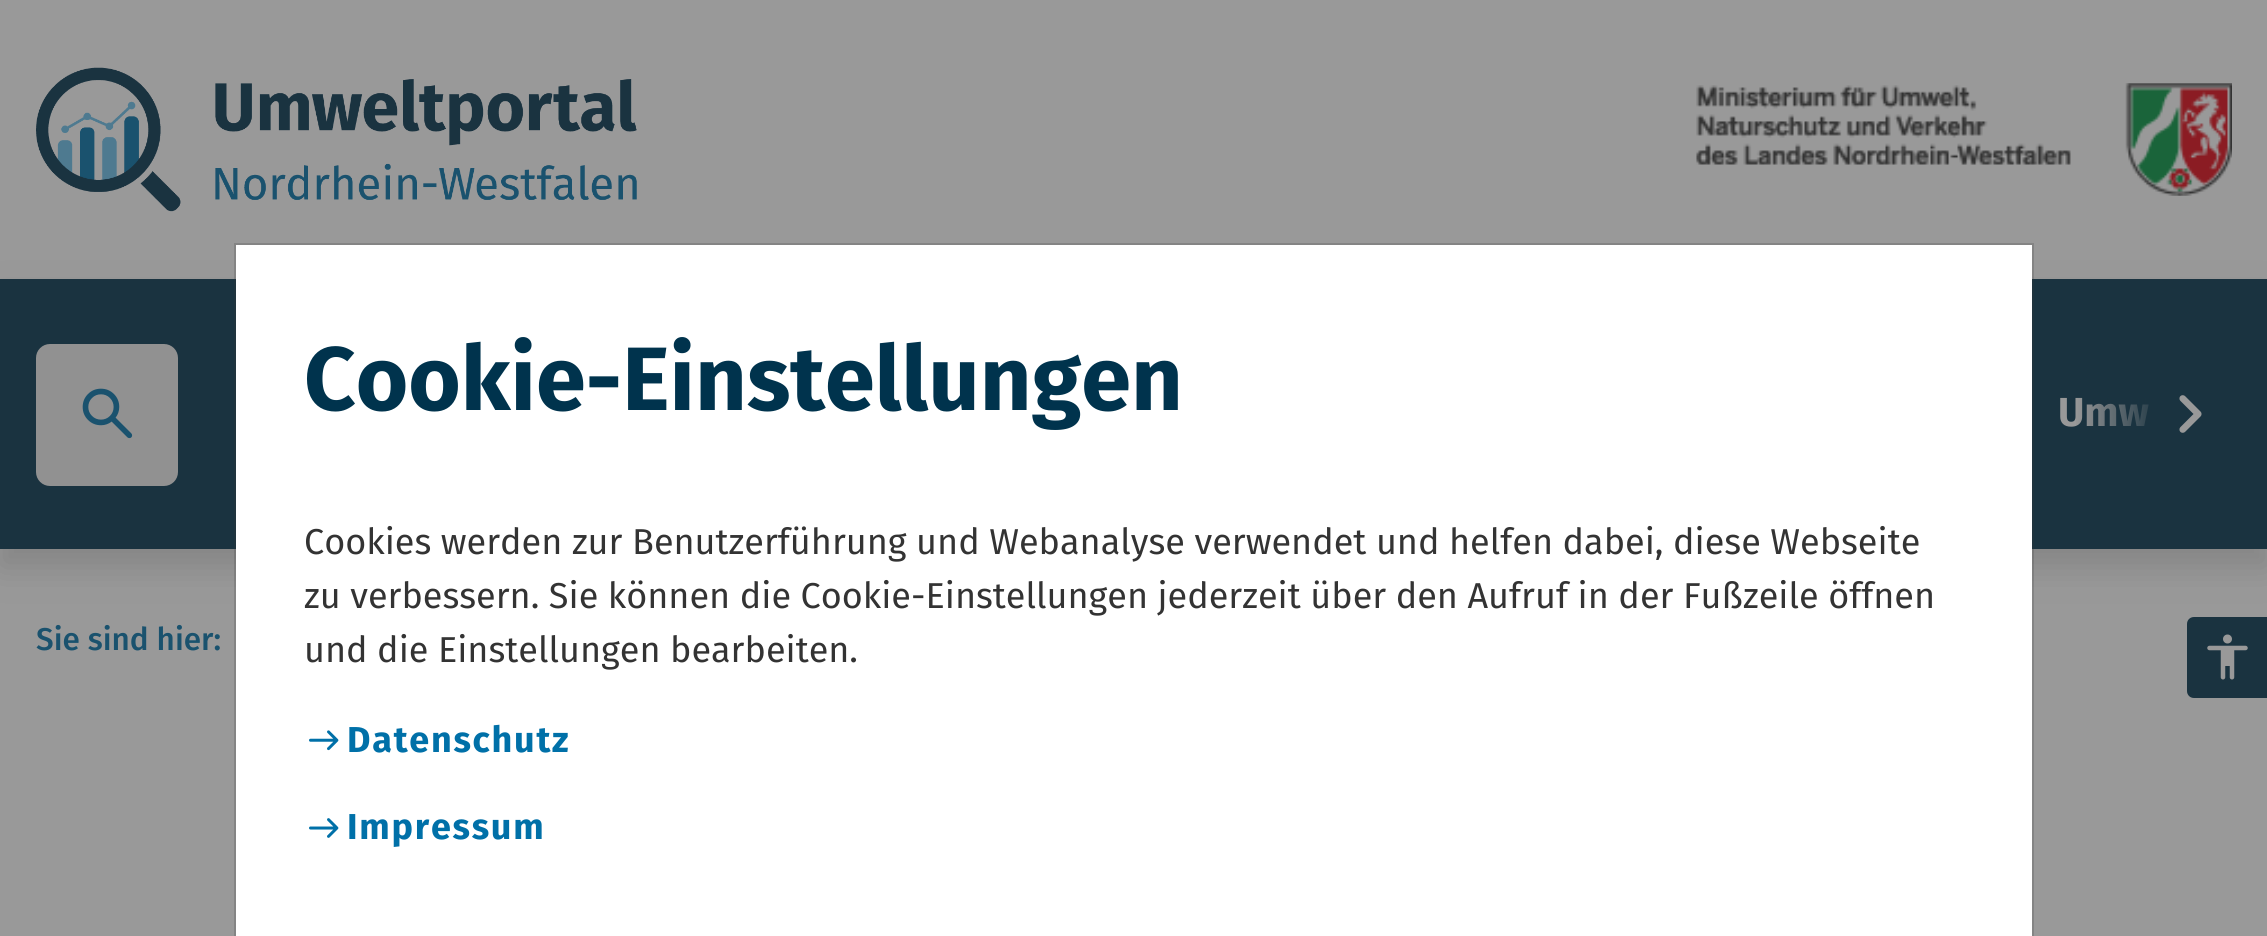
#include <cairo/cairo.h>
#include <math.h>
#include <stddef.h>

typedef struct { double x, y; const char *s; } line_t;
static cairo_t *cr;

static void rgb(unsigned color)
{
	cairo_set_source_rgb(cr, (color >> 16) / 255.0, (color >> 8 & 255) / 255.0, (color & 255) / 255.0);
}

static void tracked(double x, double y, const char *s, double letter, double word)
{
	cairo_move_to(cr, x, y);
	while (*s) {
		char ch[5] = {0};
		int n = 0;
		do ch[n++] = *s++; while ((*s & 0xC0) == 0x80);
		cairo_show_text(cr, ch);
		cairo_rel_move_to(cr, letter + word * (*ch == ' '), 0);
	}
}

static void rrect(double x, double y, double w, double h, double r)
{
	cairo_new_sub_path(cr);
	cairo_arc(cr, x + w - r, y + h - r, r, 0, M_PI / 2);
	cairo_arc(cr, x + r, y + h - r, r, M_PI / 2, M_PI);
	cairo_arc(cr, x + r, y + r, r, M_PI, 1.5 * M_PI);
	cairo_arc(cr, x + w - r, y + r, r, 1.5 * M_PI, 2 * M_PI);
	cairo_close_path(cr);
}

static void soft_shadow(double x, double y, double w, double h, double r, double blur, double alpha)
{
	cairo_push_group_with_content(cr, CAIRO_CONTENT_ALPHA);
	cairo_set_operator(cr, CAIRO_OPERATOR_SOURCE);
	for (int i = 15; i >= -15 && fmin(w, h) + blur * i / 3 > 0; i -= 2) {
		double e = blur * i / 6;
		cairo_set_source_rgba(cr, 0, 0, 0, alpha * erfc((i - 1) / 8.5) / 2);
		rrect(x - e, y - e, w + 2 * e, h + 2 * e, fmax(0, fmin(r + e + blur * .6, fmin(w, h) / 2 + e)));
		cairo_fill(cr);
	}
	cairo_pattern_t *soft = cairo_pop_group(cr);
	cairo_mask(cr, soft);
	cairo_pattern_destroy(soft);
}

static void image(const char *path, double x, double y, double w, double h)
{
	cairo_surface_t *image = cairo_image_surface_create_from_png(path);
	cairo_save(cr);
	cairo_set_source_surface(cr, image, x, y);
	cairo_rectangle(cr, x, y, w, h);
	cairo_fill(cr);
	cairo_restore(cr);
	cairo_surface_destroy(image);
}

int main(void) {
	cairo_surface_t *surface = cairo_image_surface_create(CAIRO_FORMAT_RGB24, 2267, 936);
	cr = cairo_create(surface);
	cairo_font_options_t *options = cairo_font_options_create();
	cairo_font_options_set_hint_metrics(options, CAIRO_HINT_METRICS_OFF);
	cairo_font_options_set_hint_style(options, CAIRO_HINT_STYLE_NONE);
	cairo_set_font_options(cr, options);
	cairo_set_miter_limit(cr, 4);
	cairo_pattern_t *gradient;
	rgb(0x999999);
	cairo_paint(cr);
	rgb(0x333333);
	soft_shadow(0, 297, 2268, 270, 0, 17, 0.2);
	rgb(0x1a3340);
	cairo_rectangle(cr, 0, 279, 2267, 270);
	cairo_fill(cr);
	rgb(0xffffff);
	cairo_rectangle(cr, 236, 245, 1796, 691);
	cairo_fill(cr);
	cairo_rectangle(cr, 235, 244, 1798, 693);
	cairo_set_source_rgba(cr, 0.2, 0.2, 0.2, 0.2);
	cairo_stroke(cr);
	image("img/1.png", 309, 730, 30, 21);
	image("img/2.png", 309, 818, 30, 20);
	image("img/3.png", 36, 67, 601, 145);
	image("img/4.png", 1696, 83, 536, 113);
	rgb(0x919191);
	rrect(36, 344, 142, 142, 14);
	cairo_fill(cr);
	image("img/5.png", 82, 388, 51, 51);
	image("img/6.png", 2179, 395, 23, 38);
	rgb(0x1a3340);
	cairo_new_path(cr);
	cairo_move_to(cr, 2194, 617);
	cairo_line_to(cr, 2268, 617);
	cairo_line_to(cr, 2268, 698);
	cairo_line_to(cr, 2194, 698);
	cairo_curve_to(cr, 2190, 698, 2187, 695, 2187, 691);
	cairo_line_to(cr, 2187, 624);
	cairo_curve_to(cr, 2187, 620, 2190, 617, 2194, 617);
	cairo_close_path(cr);
	cairo_fill(cr);
	image("img/7.png", 2207, 634, 41, 46);
	cairo_select_font_face(cr, "Fira Sans Medium", CAIRO_FONT_SLANT_NORMAL, CAIRO_FONT_WEIGHT_NORMAL);
	cairo_set_font_size(cr, 31.5);
	rgb(0x1a526e);
	cairo_move_to(cr, 36, 650);
	cairo_show_text(cr, "Sie sind hier:");
	cairo_select_font_face(cr, "Fira Sans", CAIRO_FONT_SLANT_NORMAL, CAIRO_FONT_WEIGHT_BOLD);
	cairo_set_font_size(cr, 90);
	rgb(0x00334d);
	cairo_move_to(cr, 304, 410);
	cairo_show_text(cr, "Cookie-Einstellungen");
	cairo_select_font_face(cr, "Fira Sans", CAIRO_FONT_SLANT_NORMAL, CAIRO_FONT_WEIGHT_NORMAL);
	cairo_set_font_size(cr, 36);
	rgb(0x333333);
	{
		static const line_t items[] = {
			{304, 554, "Cookies werden zur Benutzerführung und Webanalyse verwendet und helfen dabei, diese Webseite"},
			{304, 608, "zu verbessern. Sie können die Cookie-Einstellungen jederzeit über den Aufruf in der Fußzeile öffnen"},
			{304, 662, "und die Einstellungen bearbeiten."},
		};
		for (size_t i = 0; i < sizeof items / sizeof *items; i++) {
			cairo_move_to(cr, items[i].x, items[i].y);
			cairo_show_text(cr, items[i].s);
		}
	}
	cairo_select_font_face(cr, "Fira Sans", CAIRO_FONT_SLANT_NORMAL, CAIRO_FONT_WEIGHT_BOLD);
	rgb(0x0070a8);
	tracked(347, 752, "Datenschutz", 1.75, 0);
	tracked(347, 839, "Impressum", 1.75, 0);
	cairo_set_font_size(cr, 40.5);
	rgb(0x999999);
	cairo_move_to(cr, 2058, 426);
	cairo_show_text(cr, "Umw");
	gradient = cairo_pattern_create_linear(2232, 415, 2007, 415);
	cairo_pattern_add_color_stop_rgba(gradient, 0.3, 0.102, 0.2, 0.251, 1);
	cairo_pattern_add_color_stop_rgba(gradient, 0.7, 0.102, 0.2, 0.251, 0);
	cairo_set_source(cr, gradient);
	cairo_pattern_destroy(gradient);
	cairo_rectangle(cr, 2076, 398, 73, 28);
	cairo_fill(cr);
	cairo_surface_write_to_png(surface, "page.png");
	cairo_font_options_destroy(options);
	cairo_destroy(cr);
	cairo_surface_destroy(surface);
	return 0;
}
